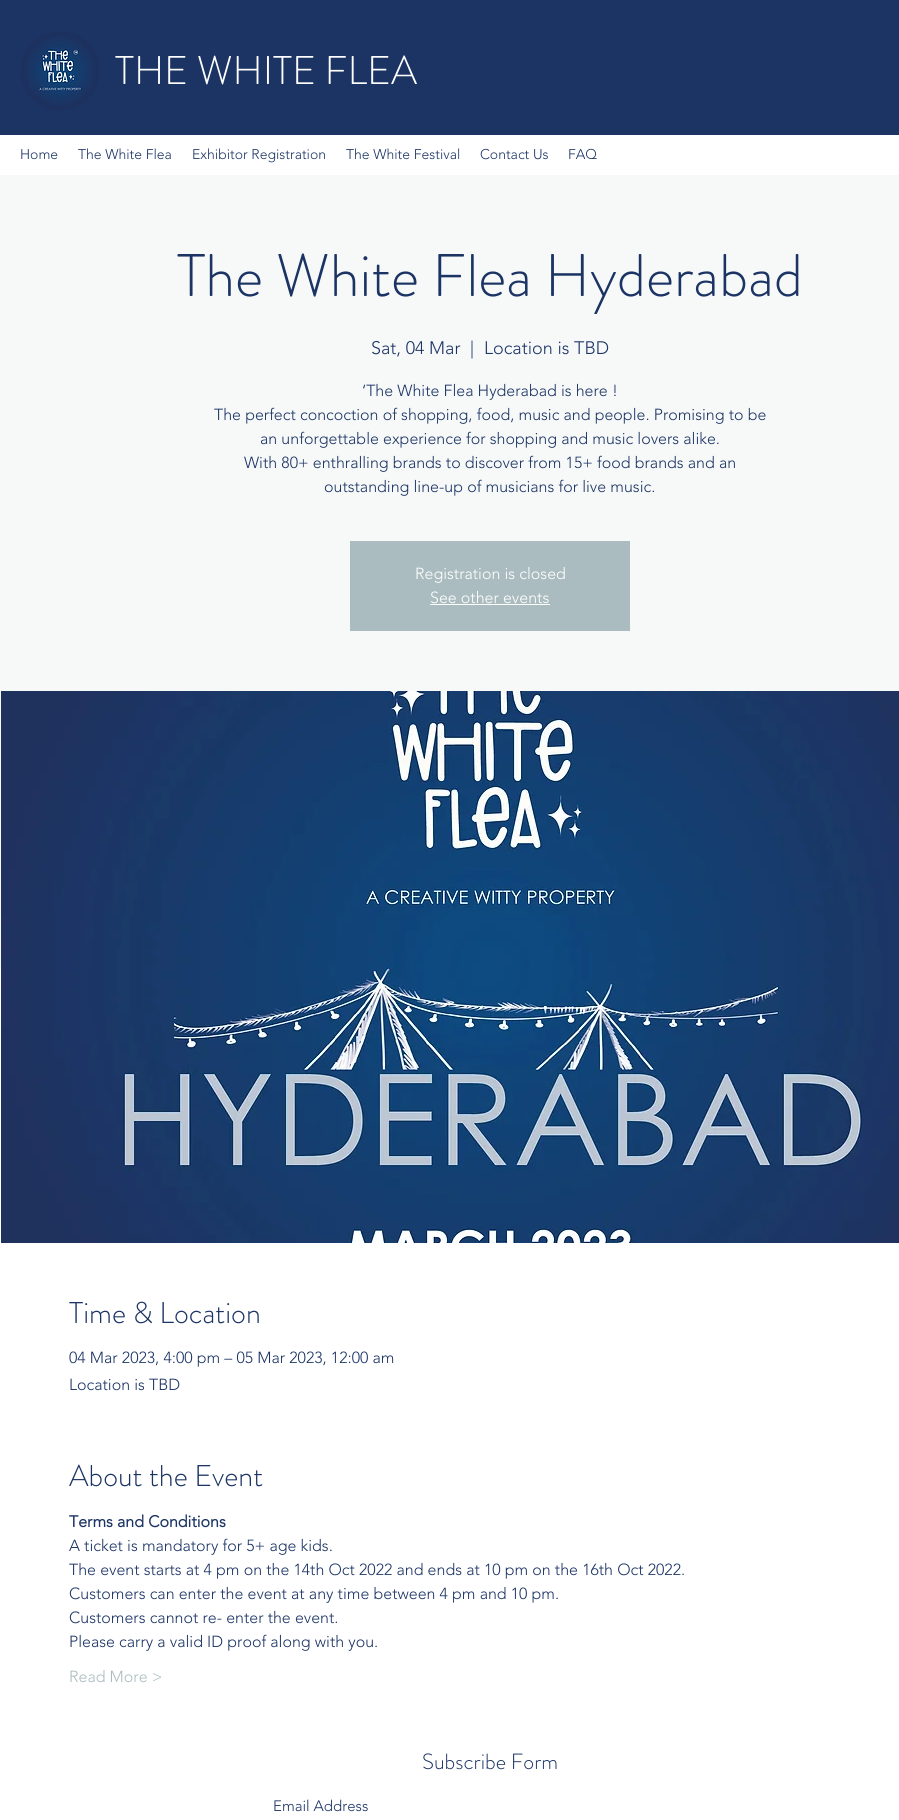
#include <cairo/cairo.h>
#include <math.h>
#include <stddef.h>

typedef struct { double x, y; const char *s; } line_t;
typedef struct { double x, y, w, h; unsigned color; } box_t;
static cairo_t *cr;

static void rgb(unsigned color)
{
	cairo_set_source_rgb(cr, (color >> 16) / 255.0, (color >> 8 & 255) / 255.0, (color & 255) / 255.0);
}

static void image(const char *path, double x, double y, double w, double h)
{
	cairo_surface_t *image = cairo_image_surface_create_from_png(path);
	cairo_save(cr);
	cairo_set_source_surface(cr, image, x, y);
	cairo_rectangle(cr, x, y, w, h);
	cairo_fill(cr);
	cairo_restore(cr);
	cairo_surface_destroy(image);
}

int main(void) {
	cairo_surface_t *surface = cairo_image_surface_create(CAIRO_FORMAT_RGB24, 899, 1820);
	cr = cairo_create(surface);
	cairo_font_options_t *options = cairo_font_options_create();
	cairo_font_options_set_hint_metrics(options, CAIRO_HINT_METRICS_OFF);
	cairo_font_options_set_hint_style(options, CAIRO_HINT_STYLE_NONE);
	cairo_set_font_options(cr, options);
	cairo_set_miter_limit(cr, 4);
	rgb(0xffffff);
	cairo_paint(cr);
	rgb(0x1c3464);
	cairo_rectangle(cr, 0, 0, 899, 135);
	cairo_fill(cr);
	image("img/1.png", 21, 32, 78, 78);
	{
		static const box_t items[] = {
			{0, 175, 899, 792, 0xf7f9f9},
			{350, 541, 280, 90, 0xaabcbf},
			{430, 604, 120, 1, 0xffffff},
		};
		for (size_t i = 0; i < sizeof items / sizeof *items; i++) {
			rgb(items[i].color);
			cairo_rectangle(cr, items[i].x, items[i].y, items[i].w, items[i].h);
			cairo_fill(cr);
		}
	}
	image("img/2.png", 1, 691, 898, 552);
	cairo_select_font_face(cr, "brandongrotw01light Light", CAIRO_FONT_SLANT_NORMAL, CAIRO_FONT_WEIGHT_NORMAL);
	cairo_set_font_size(cr, 40);
	cairo_move_to(cr, 115, 84);
	cairo_show_text(cr, "THE WHITE FLEA");
	cairo_select_font_face(cr, "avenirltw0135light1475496 Light", CAIRO_FONT_SLANT_NORMAL, CAIRO_FONT_WEIGHT_NORMAL);
	cairo_set_font_size(cr, 14);
	rgb(0x1c3464);
	{
		static const line_t items[] = {
			{20, 159, "Home"},
			{78, 159, "The White Flea"},
			{192, 159, "Exhibitor Registration"},
			{346, 159, "The White Festival"},
			{480, 159, "Contact Us"},
			{568, 159, "FAQ"},
		};
		for (size_t i = 0; i < sizeof items / sizeof *items; i++) {
			cairo_move_to(cr, items[i].x, items[i].y);
			cairo_show_text(cr, items[i].s);
		}
	}
	cairo_select_font_face(cr, "brandongrotw01light Light", CAIRO_FONT_SLANT_NORMAL, CAIRO_FONT_WEIGHT_NORMAL);
	cairo_set_font_size(cr, 60);
	cairo_move_to(cr, 177, 296);
	cairo_show_text(cr, "The White Flea Hyderabad");
	cairo_select_font_face(cr, "avenirltw0135light1475496 Light", CAIRO_FONT_SLANT_NORMAL, CAIRO_FONT_WEIGHT_NORMAL);
	cairo_set_font_size(cr, 18);
	{
		static const line_t items[] = {
			{371, 354, "Sat, 04 Mar"},
			{470, 354, "|"},
			{484, 354, "Location is TBD"},
		};
		for (size_t i = 0; i < sizeof items / sizeof *items; i++) {
			cairo_move_to(cr, items[i].x, items[i].y);
			cairo_show_text(cr, items[i].s);
		}
	}
	cairo_set_font_size(cr, 16);
	{
		static const line_t items[] = {
			{362, 396, "‘The White Flea Hyderabad is here !"},
			{214, 420, "The perfect concoction of shopping, food, music and people. Promising to be"},
			{260, 444, "an unforgettable experience for shopping and music lovers alike."},
			{244, 468, "With 80+ enthralling brands to discover from 15+ food brands and an"},
			{324, 492, "outstanding line-up of musicians for live music."},
		};
		for (size_t i = 0; i < sizeof items / sizeof *items; i++) {
			cairo_move_to(cr, items[i].x, items[i].y);
			cairo_show_text(cr, items[i].s);
		}
	}
	rgb(0xffffff);
	cairo_move_to(cr, 415, 579);
	cairo_show_text(cr, "Registration is closed");
	cairo_move_to(cr, 430, 603);
	cairo_show_text(cr, "See other events");
	cairo_select_font_face(cr, "brandongrotw01light Light", CAIRO_FONT_SLANT_NORMAL, CAIRO_FONT_WEIGHT_NORMAL);
	cairo_set_font_size(cr, 30);
	rgb(0x1c3464);
	cairo_move_to(cr, 69, 1323);
	cairo_show_text(cr, "Time & Location");
	cairo_select_font_face(cr, "avenirltw0135light1475496 Light", CAIRO_FONT_SLANT_NORMAL, CAIRO_FONT_WEIGHT_NORMAL);
	cairo_set_font_size(cr, 16);
	cairo_move_to(cr, 69, 1363);
	cairo_show_text(cr, "04 Mar 2023, 4:00 pm – 05 Mar 2023, 12:00 am");
	cairo_move_to(cr, 69, 1390);
	cairo_show_text(cr, "Location is TBD");
	cairo_select_font_face(cr, "brandongrotw01light Light", CAIRO_FONT_SLANT_NORMAL, CAIRO_FONT_WEIGHT_NORMAL);
	cairo_set_font_size(cr, 30);
	cairo_move_to(cr, 69, 1486);
	cairo_show_text(cr, "About the Event");
	cairo_select_font_face(cr, "avenirltw0135light1475496", CAIRO_FONT_SLANT_NORMAL, CAIRO_FONT_WEIGHT_BOLD);
	cairo_set_font_size(cr, 16);
	cairo_move_to(cr, 69, 1527);
	cairo_show_text(cr, "Terms and Conditions");
	cairo_select_font_face(cr, "avenirltw0135light1475496 Light", CAIRO_FONT_SLANT_NORMAL, CAIRO_FONT_WEIGHT_NORMAL);
	{
		static const line_t items[] = {
			{69, 1551, "A ticket is mandatory for 5+ age kids."},
			{69, 1575, "The event starts at 4 pm on the 14th Oct 2022 and ends at 10 pm on the 16th Oct 2022."},
			{69, 1599, "Customers can enter the event at any time between 4 pm and 10 pm."},
			{69, 1623, "Customers cannot re- enter the event."},
			{69, 1647, "Please carry a valid ID proof along with you."},
		};
		for (size_t i = 0; i < sizeof items / sizeof *items; i++) {
			cairo_move_to(cr, items[i].x, items[i].y);
			cairo_show_text(cr, items[i].s);
		}
	}
	rgb(0xaabcbf);
	cairo_move_to(cr, 69, 1682);
	cairo_show_text(cr, "Read More >");
	cairo_select_font_face(cr, "brandongrotw01light Light", CAIRO_FONT_SLANT_NORMAL, CAIRO_FONT_WEIGHT_NORMAL);
	cairo_set_font_size(cr, 22);
	rgb(0x1c3464);
	cairo_move_to(cr, 422, 1769);
	cairo_show_text(cr, "Subscribe Form");
	cairo_select_font_face(cr, "avenirltw0135light1475496 Light", CAIRO_FONT_SLANT_NORMAL, CAIRO_FONT_WEIGHT_NORMAL);
	cairo_set_font_size(cr, 15);
	cairo_move_to(cr, 273, 1811);
	cairo_show_text(cr, "Email Address");
	cairo_surface_write_to_png(surface, "page.png");
	cairo_font_options_destroy(options);
	cairo_destroy(cr);
	cairo_surface_destroy(surface);
	return 0;
}
